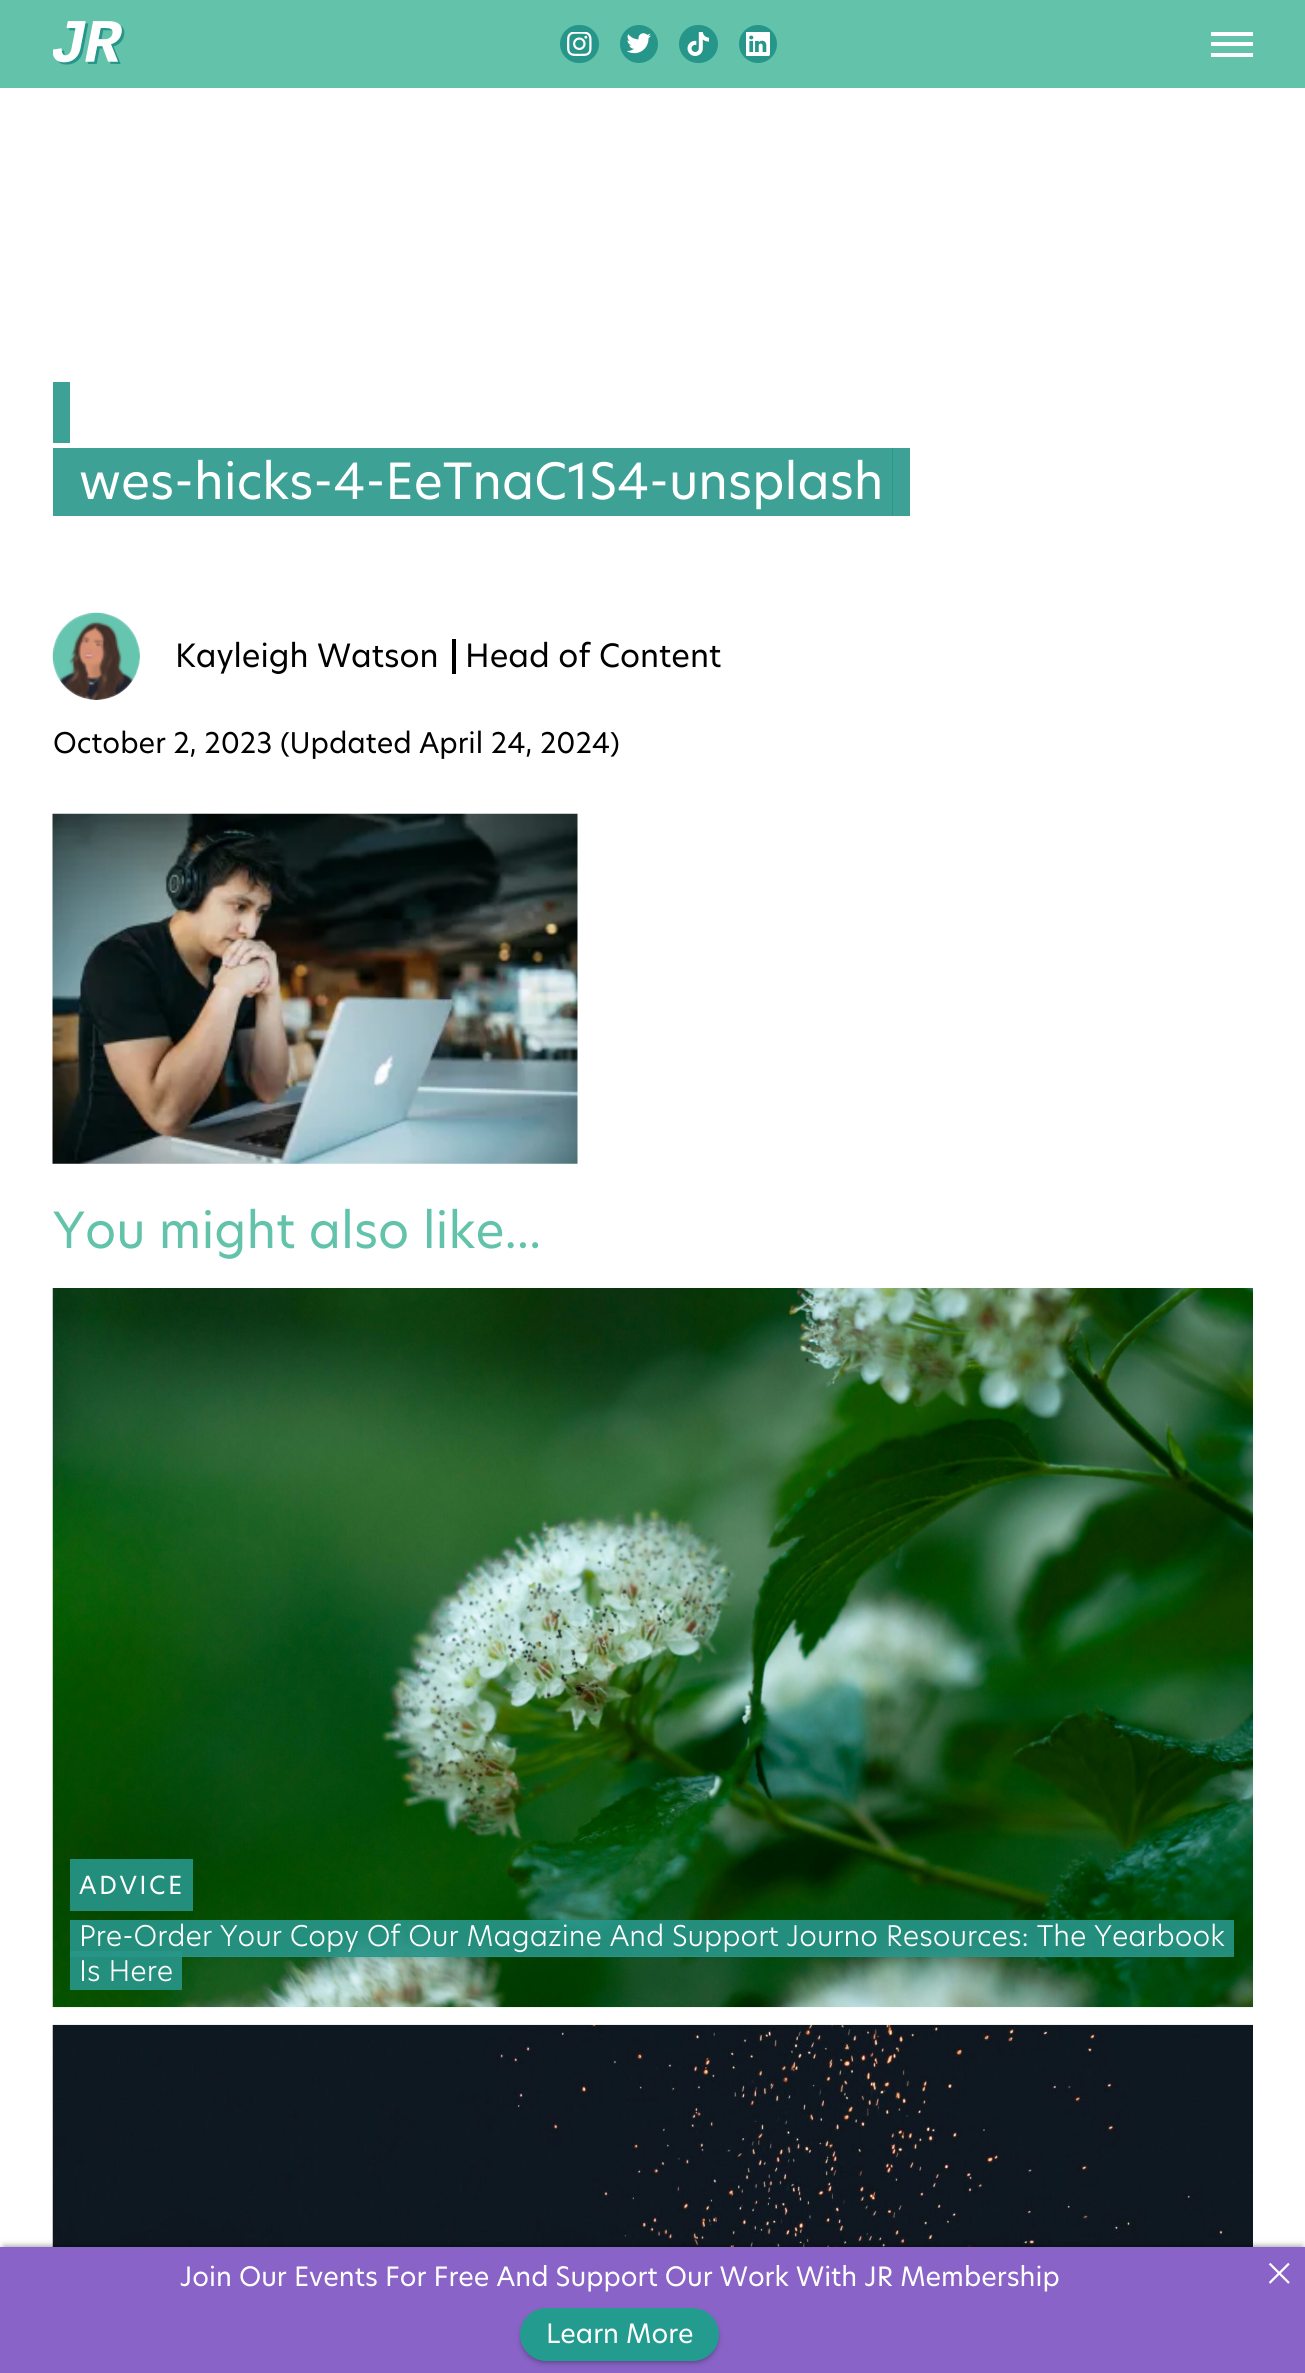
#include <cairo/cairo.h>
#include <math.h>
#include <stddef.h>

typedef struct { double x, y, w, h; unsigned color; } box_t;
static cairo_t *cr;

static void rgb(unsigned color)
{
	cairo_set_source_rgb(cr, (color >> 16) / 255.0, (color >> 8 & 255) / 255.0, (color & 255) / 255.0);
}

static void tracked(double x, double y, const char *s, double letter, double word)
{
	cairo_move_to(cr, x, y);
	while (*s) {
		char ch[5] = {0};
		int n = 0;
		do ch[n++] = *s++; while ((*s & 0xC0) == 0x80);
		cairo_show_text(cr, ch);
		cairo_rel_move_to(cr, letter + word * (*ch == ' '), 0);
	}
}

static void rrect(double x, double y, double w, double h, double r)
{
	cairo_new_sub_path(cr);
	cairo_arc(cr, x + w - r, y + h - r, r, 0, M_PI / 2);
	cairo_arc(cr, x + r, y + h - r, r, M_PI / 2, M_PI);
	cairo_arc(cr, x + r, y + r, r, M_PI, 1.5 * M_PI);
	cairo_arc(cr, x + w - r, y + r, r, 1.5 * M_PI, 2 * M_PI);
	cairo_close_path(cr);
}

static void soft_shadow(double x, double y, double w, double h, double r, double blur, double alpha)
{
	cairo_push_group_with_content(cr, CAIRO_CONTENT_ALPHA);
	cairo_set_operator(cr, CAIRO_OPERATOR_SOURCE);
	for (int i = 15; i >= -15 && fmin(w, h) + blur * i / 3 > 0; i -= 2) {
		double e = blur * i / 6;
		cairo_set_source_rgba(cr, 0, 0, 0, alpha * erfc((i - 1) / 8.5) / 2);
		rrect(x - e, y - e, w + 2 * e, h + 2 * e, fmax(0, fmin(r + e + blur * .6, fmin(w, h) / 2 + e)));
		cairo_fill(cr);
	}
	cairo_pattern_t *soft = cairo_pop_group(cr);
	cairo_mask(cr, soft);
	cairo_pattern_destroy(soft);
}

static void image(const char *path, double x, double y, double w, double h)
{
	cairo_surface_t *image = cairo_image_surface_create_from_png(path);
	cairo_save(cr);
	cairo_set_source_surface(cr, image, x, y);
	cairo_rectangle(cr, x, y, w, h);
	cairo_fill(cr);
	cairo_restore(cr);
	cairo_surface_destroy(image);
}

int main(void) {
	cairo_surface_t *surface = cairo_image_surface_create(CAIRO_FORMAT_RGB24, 1305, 2373);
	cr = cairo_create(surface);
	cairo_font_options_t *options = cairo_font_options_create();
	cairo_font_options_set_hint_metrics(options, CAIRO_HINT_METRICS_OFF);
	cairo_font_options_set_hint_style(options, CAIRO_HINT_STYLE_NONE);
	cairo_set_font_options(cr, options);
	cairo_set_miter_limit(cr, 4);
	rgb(0xffffff);
	cairo_paint(cr);
	rgb(0x3da196);
	cairo_rectangle(cr, 53, 448, 839, 68);
	cairo_fill(cr);
	rgb(0x63c2aa);
	cairo_rectangle(cr, 0, 0, 1305, 88);
	cairo_fill(cr);
	image("img/1.png", 53, 21, 72, 44);
	rgb(0x27968a);
	rrect(560, 25, 39, 38, 19);
	cairo_fill(cr);
	image("img/2.png", 567, 32, 25, 24);
	cairo_arc(cr, 639, 44, 19, 0, 2 * M_PI);
	cairo_fill(cr);
	image("img/3.png", 627, 33, 24, 21);
	rrect(679, 25, 39, 38, 19);
	cairo_fill(cr);
	image("img/4.png", 687, 32, 22, 24);
	cairo_arc(cr, 758, 44, 19, 0, 2 * M_PI);
	cairo_fill(cr);
	image("img/5.png", 746, 32, 24, 24);
	{
		static const box_t items[] = {
			{1211, 32, 42, 4, 0xffffff},
			{1211, 42, 42, 4, 0xffffff},
			{1211, 53, 42, 4, 0xffffff},
			{53, 382, 17, 61, 0x3da196},
			{893, 448, 17, 68, 0x3da196},
			{892, 448, 1, 68, 0x29978b},
		};
		for (size_t i = 0; i < sizeof items / sizeof *items; i++) {
			rgb(items[i].color);
			cairo_rectangle(cr, items[i].x, items[i].y, items[i].w, items[i].h);
			cairo_fill(cr);
		}
	}
	image("img/6.png", 52, 612, 88, 88);
	rgb(0x000000);
	cairo_rectangle(cr, 452, 639, 4, 35);
	cairo_fill(cr);
	image("img/7.png", 52, 813, 526, 351);
	image("img/8.png", 52, 1288, 1201, 720);
	cairo_set_source_rgba(cr, 0.153, 0.588, 0.541, 0.9);
	cairo_rectangle(cr, 70, 1859, 123, 52);
	cairo_fill(cr);
	cairo_save(cr);
	cairo_rectangle(cr, 70, 1920, 1166, 70);
	cairo_clip(cr);
	cairo_new_path(cr);
	cairo_move_to(cr, 70, 1916);
	cairo_line_to(cr, 70, 1957);
	cairo_line_to(cr, 1216, 1957);
	cairo_line_to(cr, 1216, 1956);
	cairo_line_to(cr, 79, 1956);
	cairo_line_to(cr, 79, 1916);
	cairo_line_to(cr, 1216, 1916);
	cairo_close_path(cr);
	cairo_fill(cr);
	cairo_new_path(cr);
	cairo_move_to(cr, 88, 1916);
	cairo_line_to(cr, 1225, 1916);
	cairo_line_to(cr, 1225, 1956);
	cairo_line_to(cr, 88, 1956);
	cairo_line_to(cr, 88, 1957);
	cairo_line_to(cr, 1234, 1957);
	cairo_line_to(cr, 1234, 1916);
	cairo_close_path(cr);
	cairo_fill(cr);
	cairo_restore(cr);
	cairo_rectangle(cr, 79, 1920, 1146, 37);
	cairo_fill(cr);
	cairo_save(cr);
	cairo_rectangle(cr, 70, 1920, 1166, 70);
	cairo_clip(cr);
	cairo_new_path(cr);
	cairo_move_to(cr, 70, 1951);
	cairo_line_to(cr, 70, 1992);
	cairo_line_to(cr, 165, 1992);
	cairo_line_to(cr, 79, 1992);
	cairo_line_to(cr, 79, 1951);
	cairo_line_to(cr, 165, 1951);
	cairo_close_path(cr);
	cairo_fill(cr);
	cairo_new_path(cr);
	cairo_move_to(cr, 88, 1951);
	cairo_line_to(cr, 173, 1951);
	cairo_line_to(cr, 173, 1992);
	cairo_line_to(cr, 88, 1992);
	cairo_line_to(cr, 182, 1992);
	cairo_line_to(cr, 182, 1951);
	cairo_close_path(cr);
	cairo_fill(cr);
	cairo_restore(cr);
	cairo_rectangle(cr, 79, 1951, 94, 39);
	cairo_fill(cr);
	image("img/9.png", 52, 2024, 1201, 223);
	rgb(0x000000);
	soft_shadow(4, 2247, 1298, 119, 0, 3.5, 0.5);
	rgb(0x8963c7);
	cairo_rectangle(cr, 0, 2247, 1305, 126);
	cairo_fill(cr);
	rgb(0x000000);
	soft_shadow(523, 2315, 193, 46, 23, 3.5, 0.5);
	rgb(0x249b8f);
	rrect(520, 2308, 199, 53, 26.5);
	cairo_fill(cr);
	image("img/10.png", 1268, 2262, 22, 22);
	cairo_select_font_face(cr, "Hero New", CAIRO_FONT_SLANT_NORMAL, CAIRO_FONT_WEIGHT_NORMAL);
	cairo_set_font_size(cr, 49);
	rgb(0xffffff);
	cairo_move_to(cr, 79, 499);
	cairo_show_text(cr, "wes-hicks-4-EeTnaC1S4-unsplash");
	cairo_set_font_size(cr, 31.5);
	rgb(0x000000);
	cairo_move_to(cr, 175, 667);
	cairo_show_text(cr, "Kayleigh Watson");
	cairo_move_to(cr, 465, 667);
	cairo_show_text(cr, "Head of Content");
	cairo_set_font_size(cr, 28);
	cairo_move_to(cr, 53, 753);
	cairo_show_text(cr, "October 2, 2023 (Updated April 24, 2024)");
	cairo_set_font_size(cr, 49);
	rgb(0x63c2aa);
	cairo_move_to(cr, 53, 1248);
	cairo_show_text(cr, "You might also like...");
	cairo_set_font_size(cr, 24.5);
	rgb(0xffffff);
	tracked(79, 1894, "ADVICE", 2.5, 0);
	cairo_select_font_face(cr, "Hero New Light", CAIRO_FONT_SLANT_NORMAL, CAIRO_FONT_WEIGHT_NORMAL);
	cairo_set_font_size(cr, 28);
	cairo_move_to(cr, 79, 1946);
	cairo_show_text(cr, "Pre-Order Your Copy Of Our Magazine And Support Journo Resources: The Yearbook");
	cairo_move_to(cr, 79, 1981);
	cairo_show_text(cr, "Is Here");
	cairo_select_font_face(cr, "Hero New", CAIRO_FONT_SLANT_NORMAL, CAIRO_FONT_WEIGHT_NORMAL);
	cairo_set_font_size(cr, 26.25);
	cairo_move_to(cr, 180, 2286);
	cairo_show_text(cr, "Join Our Events For Free And Support Our Work With JR Membership");
	cairo_move_to(cr, 546, 2343);
	cairo_show_text(cr, "Learn More");
	cairo_surface_write_to_png(surface, "page.png");
	cairo_font_options_destroy(options);
	cairo_destroy(cr);
	cairo_surface_destroy(surface);
	return 0;
}
